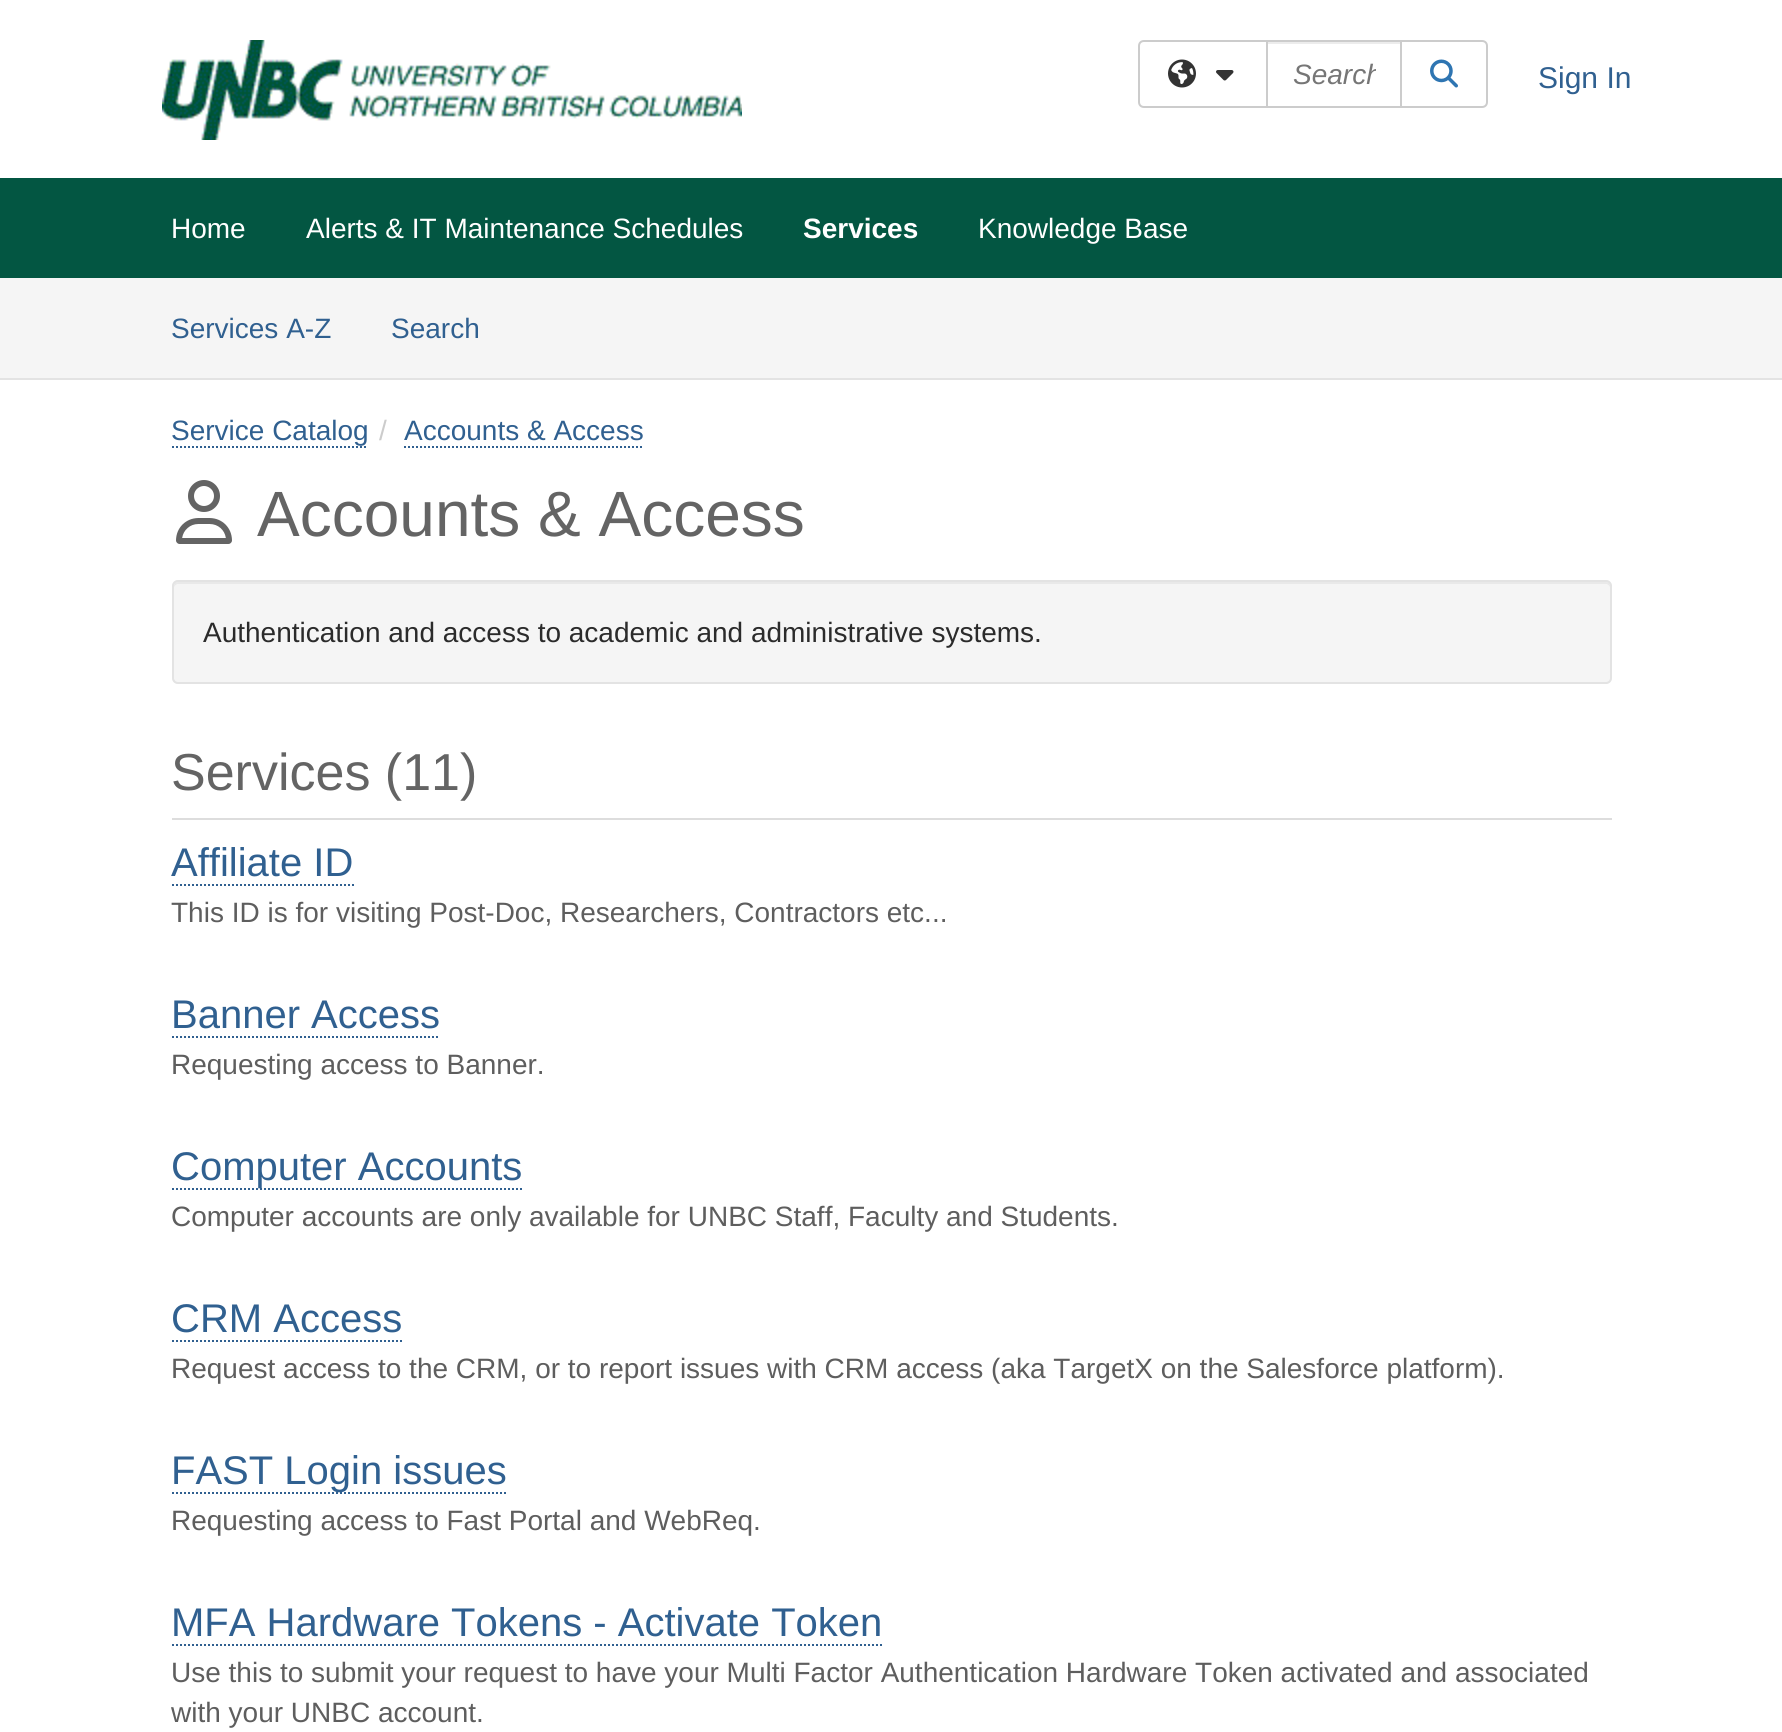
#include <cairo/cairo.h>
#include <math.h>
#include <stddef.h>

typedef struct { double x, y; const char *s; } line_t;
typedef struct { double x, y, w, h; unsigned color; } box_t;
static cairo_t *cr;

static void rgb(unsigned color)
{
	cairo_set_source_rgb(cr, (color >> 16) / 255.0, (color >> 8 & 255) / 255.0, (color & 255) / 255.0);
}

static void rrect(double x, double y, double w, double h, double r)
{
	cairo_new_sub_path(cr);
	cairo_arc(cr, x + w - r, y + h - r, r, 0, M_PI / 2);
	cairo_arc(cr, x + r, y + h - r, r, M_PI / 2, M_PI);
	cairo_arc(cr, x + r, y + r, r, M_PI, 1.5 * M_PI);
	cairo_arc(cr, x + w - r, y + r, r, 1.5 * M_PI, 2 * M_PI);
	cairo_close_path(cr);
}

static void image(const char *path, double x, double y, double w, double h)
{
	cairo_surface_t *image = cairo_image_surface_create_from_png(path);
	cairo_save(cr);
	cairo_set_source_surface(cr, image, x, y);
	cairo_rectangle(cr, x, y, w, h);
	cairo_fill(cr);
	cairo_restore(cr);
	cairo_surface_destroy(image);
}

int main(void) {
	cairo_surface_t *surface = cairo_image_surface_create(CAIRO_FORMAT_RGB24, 1782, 1732);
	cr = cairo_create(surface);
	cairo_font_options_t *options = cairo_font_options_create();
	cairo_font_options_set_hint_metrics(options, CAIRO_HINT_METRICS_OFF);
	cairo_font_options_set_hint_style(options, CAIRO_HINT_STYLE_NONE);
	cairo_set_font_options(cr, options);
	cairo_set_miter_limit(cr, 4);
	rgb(0xffffff);
	cairo_paint(cr);
	image("img/1.png", 162, 40, 580, 100);
	cairo_new_path(cr);
	cairo_move_to(cr, 1144, 41);
	cairo_line_to(cr, 1267, 41);
	cairo_line_to(cr, 1267, 107);
	cairo_line_to(cr, 1144, 107);
	cairo_curve_to(cr, 1141, 107, 1139, 105, 1139, 102);
	cairo_line_to(cr, 1139, 46);
	cairo_curve_to(cr, 1139, 43, 1141, 41, 1144, 41);
	cairo_close_path(cr);
	rgb(0xcccccc);
	cairo_stroke(cr);
	image("img/2.png", 1168, 59, 28, 29);
	image("img/3.png", 1216, 70, 18, 11);
	rgb(0xececec);
	cairo_rectangle(cr, 1268, 42, 132, 2);
	cairo_fill(cr);
	cairo_rectangle(cr, 1267, 41, 134, 66);
	rgb(0xcccccc);
	cairo_stroke(cr);
	rgb(0xffffff);
	cairo_new_path(cr);
	cairo_move_to(cr, 1401, 41);
	cairo_line_to(cr, 1482, 41);
	cairo_curve_to(cr, 1485, 41, 1487, 43, 1487, 46);
	cairo_line_to(cr, 1487, 102);
	cairo_curve_to(cr, 1487, 105, 1485, 107, 1482, 107);
	cairo_line_to(cr, 1401, 107);
	cairo_close_path(cr);
	cairo_fill_preserve(cr);
	rgb(0xcccccc);
	cairo_stroke(cr);
	image("img/4.png", 1430, 59, 28, 29);
	{
		static const box_t items[] = {
			{0, 178, 1782, 100, 0x035642},
			{0, 278, 1782, 100, 0xf5f5f5},
			{0, 378, 1782, 2, 0xe3e3e3},
		};
		for (size_t i = 0; i < sizeof items / sizeof *items; i++) {
			rgb(items[i].color);
			cairo_rectangle(cr, items[i].x, items[i].y, items[i].w, items[i].h);
			cairo_fill(cr);
		}
	}
	cairo_new_path(cr);
	cairo_move_to(cr, 172, 447);
	cairo_line_to(cr, 368, 447);
	rgb(0x306090);
	cairo_set_dash(cr, (double[]){2, 2}, 2, 0);
	cairo_stroke(cr);
	cairo_new_path(cr);
	cairo_move_to(cr, 404, 447);
	cairo_line_to(cr, 644, 447);
	cairo_stroke(cr);
	image("img/5.png", 176, 480, 56, 64);
	rgb(0xf5f5f5);
	rrect(172, 580, 1440, 104, 6);
	cairo_fill(cr);
	rgb(0xe9e9e9);
	cairo_new_path(cr);
	cairo_move_to(cr, 178, 584);
	cairo_line_to(cr, 1606, 584);
	cairo_curve_to(cr, 1608, 584, 1610, 586, 1610, 588);
	cairo_curve_to(cr, 1610, 585, 1610, 582, 1606, 582);
	cairo_line_to(cr, 178, 582);
	cairo_curve_to(cr, 174, 582, 174, 585, 174, 588);
	cairo_curve_to(cr, 174, 586, 176, 584, 178, 584);
	cairo_close_path(cr);
	cairo_fill(cr);
	rrect(173, 581, 1438, 102, 5);
	rgb(0xe3e3e3);
	cairo_set_dash(cr, NULL, 0, 0);
	cairo_stroke(cr);
	rgb(0xdddddd);
	cairo_rectangle(cr, 172, 818, 1440, 2);
	cairo_fill(cr);
	cairo_new_path(cr);
	cairo_move_to(cr, 172, 885);
	cairo_line_to(cr, 354, 885);
	rgb(0x306090);
	cairo_set_dash(cr, (double[]){2, 2}, 2, 0);
	cairo_stroke(cr);
	cairo_new_path(cr);
	cairo_move_to(cr, 172, 1037);
	cairo_line_to(cr, 440, 1037);
	cairo_stroke(cr);
	cairo_new_path(cr);
	cairo_move_to(cr, 172, 1189);
	cairo_line_to(cr, 522, 1189);
	cairo_stroke(cr);
	cairo_new_path(cr);
	cairo_move_to(cr, 172, 1341);
	cairo_line_to(cr, 402, 1341);
	cairo_stroke(cr);
	cairo_new_path(cr);
	cairo_move_to(cr, 172, 1493);
	cairo_line_to(cr, 506, 1493);
	cairo_stroke(cr);
	cairo_new_path(cr);
	cairo_move_to(cr, 172, 1645);
	cairo_line_to(cr, 882, 1645);
	cairo_stroke(cr);
	cairo_save(cr);
	cairo_rectangle(cr, 1292, 58, 84, 32);
	cairo_clip(cr);
	cairo_select_font_face(cr, "Liberation Sans", CAIRO_FONT_SLANT_ITALIC, CAIRO_FONT_WEIGHT_NORMAL);
	cairo_set_font_size(cr, 28);
	rgb(0x767676);
	cairo_move_to(cr, 1293, 84);
	cairo_show_text(cr, "Search");
	cairo_restore(cr);
	cairo_select_font_face(cr, "Liberation Sans", CAIRO_FONT_SLANT_NORMAL, CAIRO_FONT_WEIGHT_NORMAL);
	cairo_set_font_size(cr, 30);
	cairo_move_to(cr, 1538, 88);
	cairo_show_text(cr, "Sign In");
	cairo_set_font_size(cr, 28);
	rgb(0xffffff);
	cairo_move_to(cr, 171, 238);
	cairo_show_text(cr, "Home");
	cairo_move_to(cr, 306, 238);
	cairo_show_text(cr, "Alerts & IT Maintenance Schedules");
	cairo_select_font_face(cr, "Liberation Sans", CAIRO_FONT_SLANT_NORMAL, CAIRO_FONT_WEIGHT_BOLD);
	cairo_move_to(cr, 803, 238);
	cairo_show_text(cr, "Services");
	cairo_select_font_face(cr, "Liberation Sans", CAIRO_FONT_SLANT_NORMAL, CAIRO_FONT_WEIGHT_NORMAL);
	cairo_move_to(cr, 978, 238);
	cairo_show_text(cr, "Knowledge Base");
	rgb(0x306090);
	{
		static const line_t items[] = {
			{171, 338, "Services A-Z"},
			{391, 338, "Search"},
			{171, 440, "Service Catalog"},
		};
		for (size_t i = 0; i < sizeof items / sizeof *items; i++) {
			cairo_move_to(cr, items[i].x, items[i].y);
			cairo_show_text(cr, items[i].s);
		}
	}
	rgb(0xcccccc);
	cairo_move_to(cr, 379, 440);
	cairo_show_text(cr, "/");
	rgb(0x306090);
	cairo_move_to(cr, 404, 440);
	cairo_show_text(cr, "Accounts & Access");
	cairo_set_font_size(cr, 64);
	rgb(0x646464);
	cairo_move_to(cr, 257, 536);
	cairo_show_text(cr, "Accounts & Access");
	cairo_set_font_size(cr, 28);
	rgb(0x2b2b2b);
	cairo_move_to(cr, 203, 642);
	cairo_show_text(cr, "Authentication and access to academic and administrative systems.");
	cairo_set_font_size(cr, 52);
	rgb(0x646464);
	cairo_move_to(cr, 171, 790);
	cairo_show_text(cr, "Services (11)");
	cairo_set_font_size(cr, 40);
	rgb(0x306090);
	cairo_move_to(cr, 171, 876);
	cairo_show_text(cr, "Affiliate ID");
	cairo_set_font_size(cr, 28);
	rgb(0x5e5e5e);
	cairo_move_to(cr, 171, 922);
	cairo_show_text(cr, "This ID is for visiting Post-Doc, Researchers, Contractors etc...");
	cairo_set_font_size(cr, 40);
	rgb(0x306090);
	cairo_move_to(cr, 171, 1028);
	cairo_show_text(cr, "Banner Access");
	cairo_set_font_size(cr, 28);
	rgb(0x5e5e5e);
	cairo_move_to(cr, 171, 1074);
	cairo_show_text(cr, "Requesting access to Banner.");
	cairo_set_font_size(cr, 40);
	rgb(0x306090);
	cairo_move_to(cr, 171, 1180);
	cairo_show_text(cr, "Computer Accounts");
	cairo_set_font_size(cr, 28);
	rgb(0x5e5e5e);
	cairo_move_to(cr, 171, 1226);
	cairo_show_text(cr, "Computer accounts are only available for UNBC Staff, Faculty and Students.");
	cairo_set_font_size(cr, 40);
	rgb(0x306090);
	cairo_move_to(cr, 171, 1332);
	cairo_show_text(cr, "CRM Access");
	cairo_set_font_size(cr, 28);
	rgb(0x5e5e5e);
	cairo_move_to(cr, 171, 1378);
	cairo_show_text(cr, "Request access to the CRM, or to report issues with CRM access (aka TargetX on the Salesforce platform).");
	cairo_set_font_size(cr, 40);
	rgb(0x306090);
	cairo_move_to(cr, 171, 1484);
	cairo_show_text(cr, "FAST Login issues");
	cairo_set_font_size(cr, 28);
	rgb(0x5e5e5e);
	cairo_move_to(cr, 171, 1530);
	cairo_show_text(cr, "Requesting access to Fast Portal and WebReq.");
	cairo_set_font_size(cr, 40);
	rgb(0x306090);
	cairo_move_to(cr, 171, 1636);
	cairo_show_text(cr, "MFA Hardware Tokens - Activate Token");
	cairo_set_font_size(cr, 28);
	rgb(0x5e5e5e);
	cairo_move_to(cr, 171, 1682);
	cairo_show_text(cr, "Use this to submit your request to have your Multi Factor Authentication Hardware Token activated and associated");
	cairo_move_to(cr, 171, 1722);
	cairo_show_text(cr, "with your UNBC account.");
	cairo_surface_write_to_png(surface, "page.png");
	cairo_font_options_destroy(options);
	cairo_destroy(cr);
	cairo_surface_destroy(surface);
	return 0;
}
